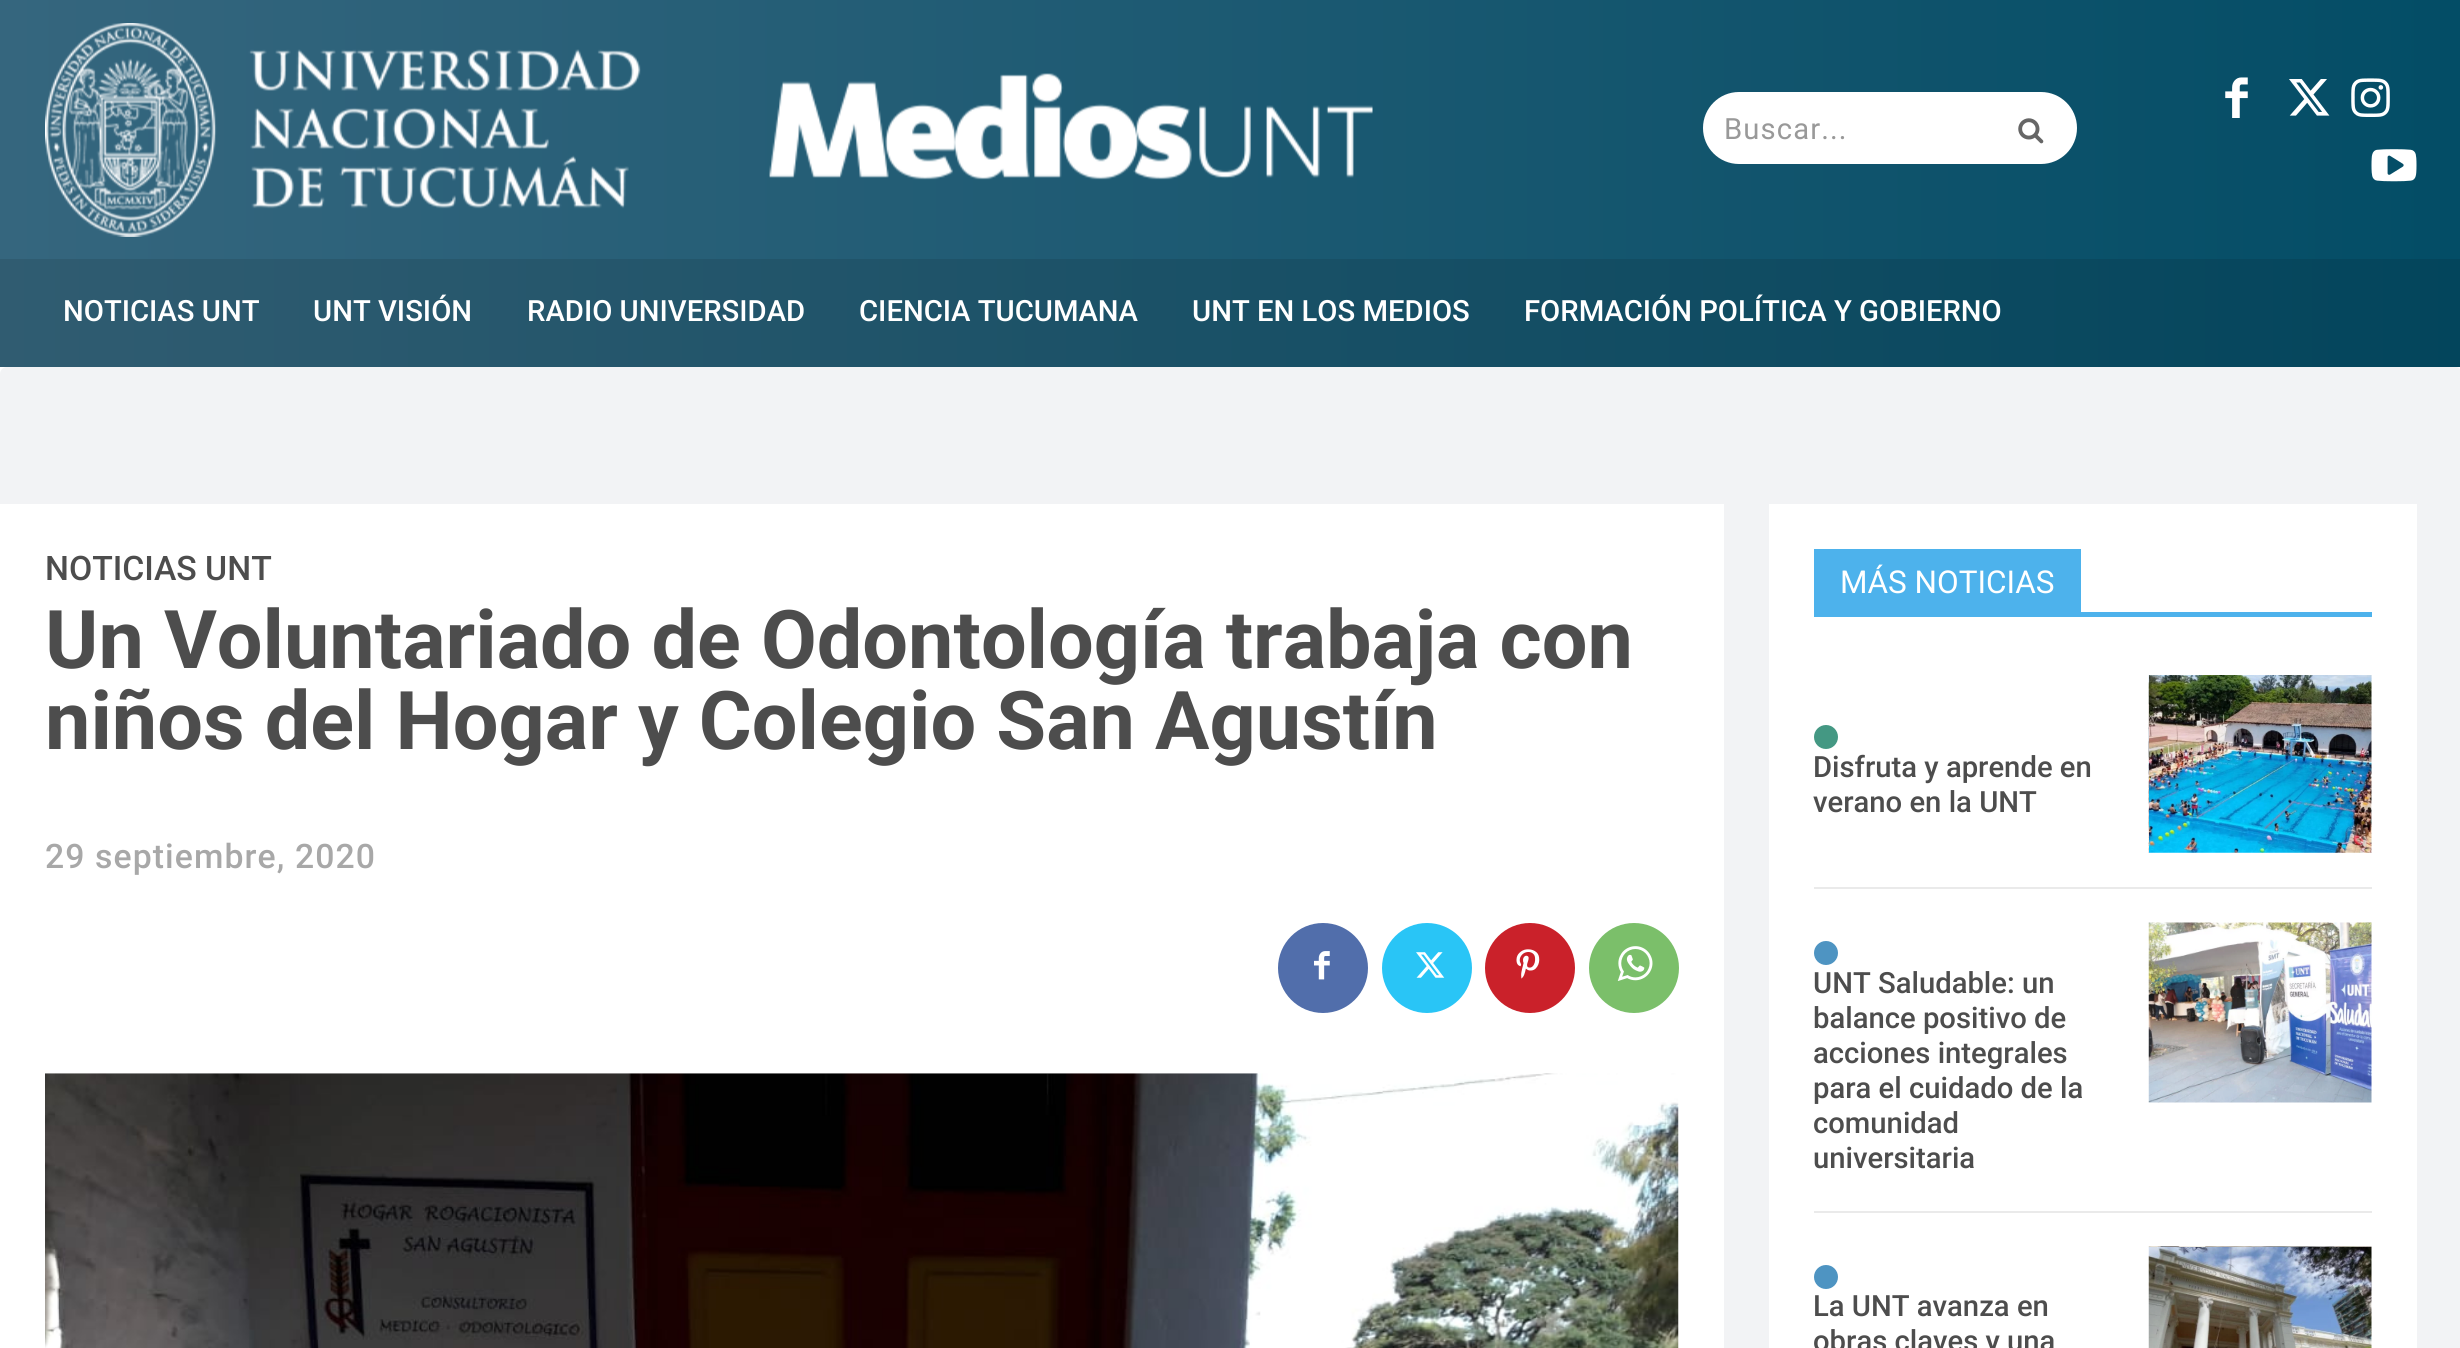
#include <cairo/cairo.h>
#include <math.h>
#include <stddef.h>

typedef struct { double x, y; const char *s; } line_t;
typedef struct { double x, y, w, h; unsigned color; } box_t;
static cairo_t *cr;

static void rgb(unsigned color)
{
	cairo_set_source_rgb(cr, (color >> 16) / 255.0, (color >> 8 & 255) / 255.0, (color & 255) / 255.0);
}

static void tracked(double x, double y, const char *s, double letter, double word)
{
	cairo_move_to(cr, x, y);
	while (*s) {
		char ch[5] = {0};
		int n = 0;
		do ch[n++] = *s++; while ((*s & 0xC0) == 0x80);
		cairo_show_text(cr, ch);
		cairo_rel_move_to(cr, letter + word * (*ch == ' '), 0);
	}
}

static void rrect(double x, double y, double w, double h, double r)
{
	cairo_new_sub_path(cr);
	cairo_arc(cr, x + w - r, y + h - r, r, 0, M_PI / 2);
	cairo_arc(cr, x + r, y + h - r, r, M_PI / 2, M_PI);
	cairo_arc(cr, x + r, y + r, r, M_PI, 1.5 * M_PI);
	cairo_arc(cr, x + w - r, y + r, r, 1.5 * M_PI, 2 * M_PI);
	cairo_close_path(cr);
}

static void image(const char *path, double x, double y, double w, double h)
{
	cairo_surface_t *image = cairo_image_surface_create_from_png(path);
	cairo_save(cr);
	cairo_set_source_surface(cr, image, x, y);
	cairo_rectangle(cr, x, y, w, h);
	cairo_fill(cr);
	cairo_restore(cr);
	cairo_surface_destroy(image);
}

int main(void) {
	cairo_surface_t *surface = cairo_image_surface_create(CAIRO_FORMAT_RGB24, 2460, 1348);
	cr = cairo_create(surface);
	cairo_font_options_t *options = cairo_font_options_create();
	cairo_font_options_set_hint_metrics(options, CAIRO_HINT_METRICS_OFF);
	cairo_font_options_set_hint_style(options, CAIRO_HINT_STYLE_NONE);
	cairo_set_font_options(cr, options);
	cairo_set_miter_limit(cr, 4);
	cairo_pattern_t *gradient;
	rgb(0xffffff);
	cairo_paint(cr);
	gradient = cairo_pattern_create_linear(0, 183, 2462, 183);
	cairo_pattern_add_color_stop_rgba(gradient, 0, 0.208, 0.4, 0.494, 1);
	cairo_pattern_add_color_stop_rgba(gradient, 1, 0.012, 0.302, 0.4, 1);
	cairo_set_source(cr, gradient);
	cairo_pattern_destroy(gradient);
	cairo_rectangle(cr, 0, 0, 2460, 259);
	cairo_fill(cr);
	gradient = cairo_pattern_create_linear(0, 183, 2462, 183);
	cairo_pattern_add_color_stop_rgba(gradient, 0, 0.188, 0.361, 0.443, 1);
	cairo_pattern_add_color_stop_rgba(gradient, 1, 0.012, 0.271, 0.361, 1);
	cairo_set_source(cr, gradient);
	cairo_pattern_destroy(gradient);
	cairo_rectangle(cr, 0, 259, 2460, 108);
	cairo_fill(cr);
	image("img/1.png", 45, 23, 1328, 214);
	rgb(0xffffff);
	rrect(1703, 92, 374, 72, 36);
	cairo_fill(cr);
	image("img/2.png", 2018, 118, 26, 26);
	image("img/3.png", 2225, 77, 23, 41);
	image("img/4.png", 2289, 79, 41, 37);
	image("img/5.png", 2351, 78, 39, 39);
	image("img/6.png", 2371, 149, 46, 33);
	rgb(0xf2f3f5);
	rrect(0, 367, 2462, 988, 7);
	cairo_fill(cr);
	rgb(0xffffff);
	cairo_rectangle(cr, 0, 504, 1724, 844);
	cairo_fill(cr);
	rgb(0x516eab);
	cairo_arc(cr, 1323, 968, 45, 0, 2 * M_PI);
	cairo_fill(cr);
	image("img/7.png", 1314, 951, 16, 29);
	rgb(0x29c5f6);
	cairo_arc(cr, 1427, 968, 45, 0, 2 * M_PI);
	cairo_fill(cr);
	image("img/8.png", 1416, 952, 29, 26);
	rgb(0xca212a);
	cairo_arc(cr, 1530, 968, 45, 0, 2 * M_PI);
	cairo_fill(cr);
	image("img/9.png", 1516, 949, 24, 30);
	rgb(0x7bbf6a);
	cairo_arc(cr, 1634, 968, 45, 0, 2 * M_PI);
	cairo_fill(cr);
	image("img/10.png", 1617, 946, 36, 35);
	image("img/11.png", 45, 1073, 1634, 275);
	{
		static const box_t items[] = {
			{1769, 504, 648, 844, 0xffffff},
			{1814, 612, 558, 5, 0x4db2ec},
			{1814, 549, 267, 63, 0x4db2ec},
			{1814, 887, 558, 2, 0xeaeaea},
		};
		for (size_t i = 0; i < sizeof items / sizeof *items; i++) {
			rgb(items[i].color);
			cairo_rectangle(cr, items[i].x, items[i].y, items[i].w, items[i].h);
			cairo_fill(cr);
		}
	}
	rgb(0x449883);
	cairo_arc(cr, 1826, 737, 12, 0, 2 * M_PI);
	cairo_fill(cr);
	image("img/12.png", 2148, 675, 224, 178);
	rgb(0xeaeaea);
	cairo_rectangle(cr, 1814, 1211, 558, 2);
	cairo_fill(cr);
	rgb(0x4e94c2);
	cairo_arc(cr, 1826, 953, 12, 0, 2 * M_PI);
	cairo_fill(cr);
	image("img/13.png", 2148, 922, 224, 181);
	cairo_arc(cr, 1826, 1277, 12, 0, 2 * M_PI);
	cairo_fill(cr);
	image("img/14.png", 2148, 1246, 224, 102);
	cairo_select_font_face(cr, "Roboto", CAIRO_FONT_SLANT_NORMAL, CAIRO_FONT_WEIGHT_NORMAL);
	cairo_set_font_size(cr, 29.25);
	rgb(0x999999);
	tracked(1724, 139, "Buscar...", 1.1, 0);
	cairo_select_font_face(cr, "Roboto Medium", CAIRO_FONT_SLANT_NORMAL, CAIRO_FONT_WEIGHT_NORMAL);
	rgb(0xffffff);
	{
		static const line_t items[] = {
			{63, 321, "NOTICIAS UNT"},
			{313, 321, "UNT VISIÓN"},
			{527, 321, "RADIO UNIVERSIDAD"},
			{859, 321, "CIENCIA TUCUMANA"},
			{1192, 321, "UNT EN LOS MEDIOS"},
			{1524, 321, "FORMACIÓN POLÍTICA Y GOBIERNO"},
		};
		for (size_t i = 0; i < sizeof items / sizeof *items; i++) {
			cairo_move_to(cr, items[i].x, items[i].y);
			cairo_show_text(cr, items[i].s);
		}
	}
	cairo_set_font_size(cr, 33.75);
	rgb(0x4d4d4d);
	cairo_move_to(cr, 45, 580);
	cairo_show_text(cr, "NOTICIAS UNT");
	cairo_select_font_face(cr, "Roboto", CAIRO_FONT_SLANT_NORMAL, CAIRO_FONT_WEIGHT_BOLD);
	cairo_set_font_size(cr, 81);
	cairo_move_to(cr, 45, 668);
	cairo_show_text(cr, "Un Voluntariado de Odontología trabaja con");
	cairo_move_to(cr, 45, 749);
	cairo_show_text(cr, "niños del Hogar y Colegio San Agustín");
	cairo_select_font_face(cr, "Roboto Medium", CAIRO_FONT_SLANT_NORMAL, CAIRO_FONT_WEIGHT_NORMAL);
	cairo_set_font_size(cr, 33.75);
	rgb(0xa8a8a8);
	tracked(45, 868, "29 septiembre, 2020", 1.1, 0);
	cairo_select_font_face(cr, "Roboto", CAIRO_FONT_SLANT_NORMAL, CAIRO_FONT_WEIGHT_NORMAL);
	cairo_set_font_size(cr, 31.5);
	rgb(0xffffff);
	cairo_move_to(cr, 1840, 593);
	cairo_show_text(cr, "MÁS NOTICIAS");
	cairo_select_font_face(cr, "Roboto Medium", CAIRO_FONT_SLANT_NORMAL, CAIRO_FONT_WEIGHT_NORMAL);
	cairo_set_font_size(cr, 29.25);
	rgb(0x4d4d4d);
	{
		static const line_t items[] = {
			{1813, 777, "Disfruta y aprende en"},
			{1813, 812, "verano en la UNT"},
			{1813, 993, "UNT Saludable: un"},
			{1813, 1028, "balance positivo de"},
			{1813, 1063, "acciones integrales"},
			{1813, 1098, "para el cuidado de la"},
			{1813, 1133, "comunidad"},
			{1813, 1168, "universitaria"},
			{1813, 1316, "La UNT avanza en"},
			{1813, 1351, "obras claves y una"},
		};
		for (size_t i = 0; i < sizeof items / sizeof *items; i++) {
			cairo_move_to(cr, items[i].x, items[i].y);
			cairo_show_text(cr, items[i].s);
		}
	}
	cairo_surface_write_to_png(surface, "page.png");
	cairo_font_options_destroy(options);
	cairo_destroy(cr);
	cairo_surface_destroy(surface);
	return 0;
}
